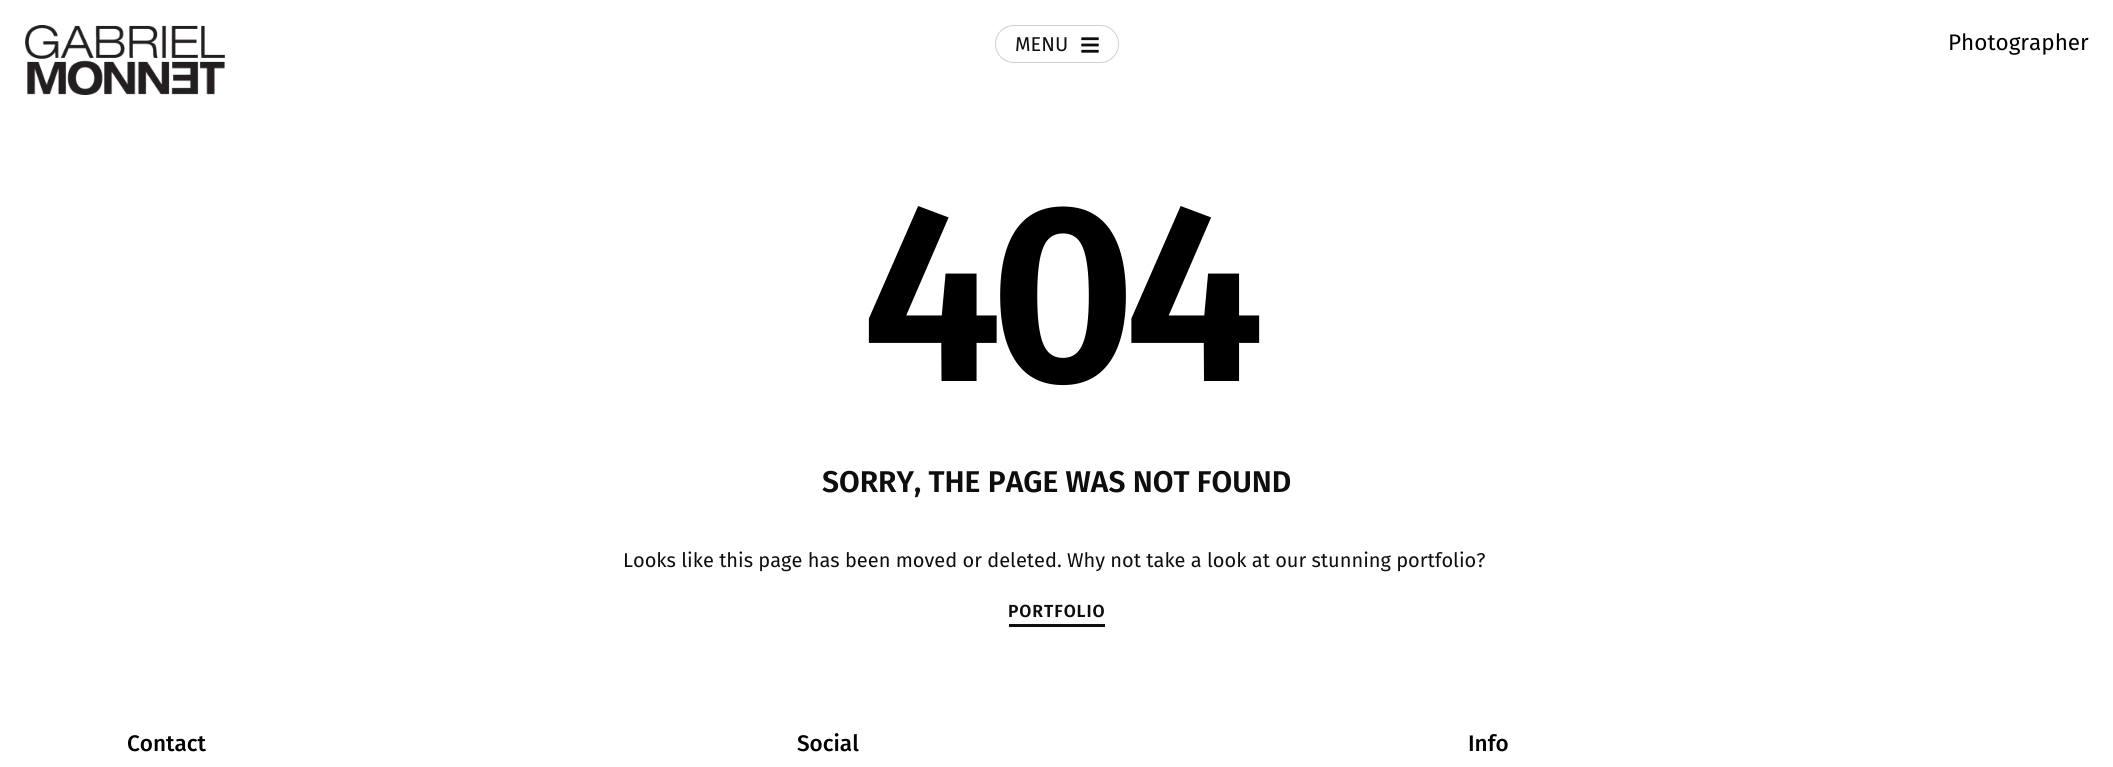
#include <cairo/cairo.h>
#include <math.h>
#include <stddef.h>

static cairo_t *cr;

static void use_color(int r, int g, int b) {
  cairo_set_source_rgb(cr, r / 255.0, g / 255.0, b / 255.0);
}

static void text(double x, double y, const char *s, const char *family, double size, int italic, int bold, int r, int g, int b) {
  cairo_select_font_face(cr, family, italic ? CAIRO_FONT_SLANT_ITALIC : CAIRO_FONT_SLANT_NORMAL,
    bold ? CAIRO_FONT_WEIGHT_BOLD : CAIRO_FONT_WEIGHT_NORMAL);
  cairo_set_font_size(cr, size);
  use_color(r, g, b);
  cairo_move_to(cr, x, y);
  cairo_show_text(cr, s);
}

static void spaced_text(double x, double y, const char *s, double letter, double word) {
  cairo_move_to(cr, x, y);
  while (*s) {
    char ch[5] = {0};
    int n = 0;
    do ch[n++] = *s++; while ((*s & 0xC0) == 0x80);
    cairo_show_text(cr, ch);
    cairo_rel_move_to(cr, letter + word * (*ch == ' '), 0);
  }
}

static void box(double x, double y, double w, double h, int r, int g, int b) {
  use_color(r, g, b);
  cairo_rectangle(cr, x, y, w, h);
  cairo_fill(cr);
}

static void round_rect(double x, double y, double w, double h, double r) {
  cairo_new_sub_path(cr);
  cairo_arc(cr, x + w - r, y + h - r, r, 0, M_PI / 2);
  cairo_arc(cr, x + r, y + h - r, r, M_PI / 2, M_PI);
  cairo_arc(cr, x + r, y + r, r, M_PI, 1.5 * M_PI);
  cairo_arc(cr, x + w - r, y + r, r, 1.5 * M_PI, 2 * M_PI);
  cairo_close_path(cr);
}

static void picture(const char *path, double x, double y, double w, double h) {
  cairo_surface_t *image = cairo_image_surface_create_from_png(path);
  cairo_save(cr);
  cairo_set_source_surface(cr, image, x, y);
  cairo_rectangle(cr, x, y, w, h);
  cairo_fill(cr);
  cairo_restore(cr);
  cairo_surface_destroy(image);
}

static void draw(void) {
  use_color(255, 255, 255);
  cairo_paint(cr);
  picture("img_01.png", 25, 25, 200, 70);
  round_rect(995.5, 25.5, 123, 37, 18.5);
  use_color(207, 207, 207);
  cairo_set_line_width(cr, 1);
  cairo_stroke(cr);
  picture("img_02.png", 1081, 37, 18, 16);
  box(1009, 624, 96, 3, 14, 14, 14);
  text(1015, 51, "MENU", "Fira Sans", 20, 0, 0, 14, 14, 14);
  text(1948, 50, "Photographer", "Fira Sans", 22.5, 0, 0, 0, 0, 0);
  cairo_select_font_face(cr, "Fira Sans SemiBold", CAIRO_FONT_SLANT_NORMAL, CAIRO_FONT_WEIGHT_NORMAL);
  cairo_set_font_size(cr, 254);
  spaced_text(861, 381, "404", -13, 0);
  text(822, 492, "SORRY, THE PAGE WAS NOT FOUND", "Fira Sans SemiBold", 30, 0, 0, 14, 14, 14);
  text(623, 567, "Looks like this page has been moved or deleted. Why not take a look at our stunning portfolio?", "Fira Sans", 20, 0, 0, 14, 14, 14);
  cairo_select_font_face(cr, "Fira Sans SemiBold", CAIRO_FONT_SLANT_NORMAL, CAIRO_FONT_WEIGHT_NORMAL);
  cairo_set_font_size(cr, 17.5);
  spaced_text(1008, 617, "PORTFOLIO", 0.9, 0);
  text(127, 751, "Contact", "Fira Sans Medium", 22.5, 0, 0, 0, 0, 0);
  text(797, 751, "Social", "Fira Sans Medium", 22.5, 0, 0, 0, 0, 0);
  text(1468, 751, "Info", "Fira Sans Medium", 22.5, 0, 0, 0, 0, 0);
}

int main(void) {
  cairo_surface_t *surface = cairo_image_surface_create(CAIRO_FORMAT_RGB24, 2113, 767);
  cr = cairo_create(surface);
  cairo_font_options_t *options = cairo_font_options_create();
  cairo_font_options_set_hint_metrics(options, CAIRO_HINT_METRICS_OFF);
  cairo_font_options_set_hint_style(options, CAIRO_HINT_STYLE_NONE);
  cairo_set_font_options(cr, options);
  cairo_set_miter_limit(cr, 4);
  draw();
  cairo_surface_write_to_png(surface, "out.png");
  cairo_font_options_destroy(options);
  cairo_destroy(cr);
  cairo_surface_destroy(surface);
  return 0;
}
